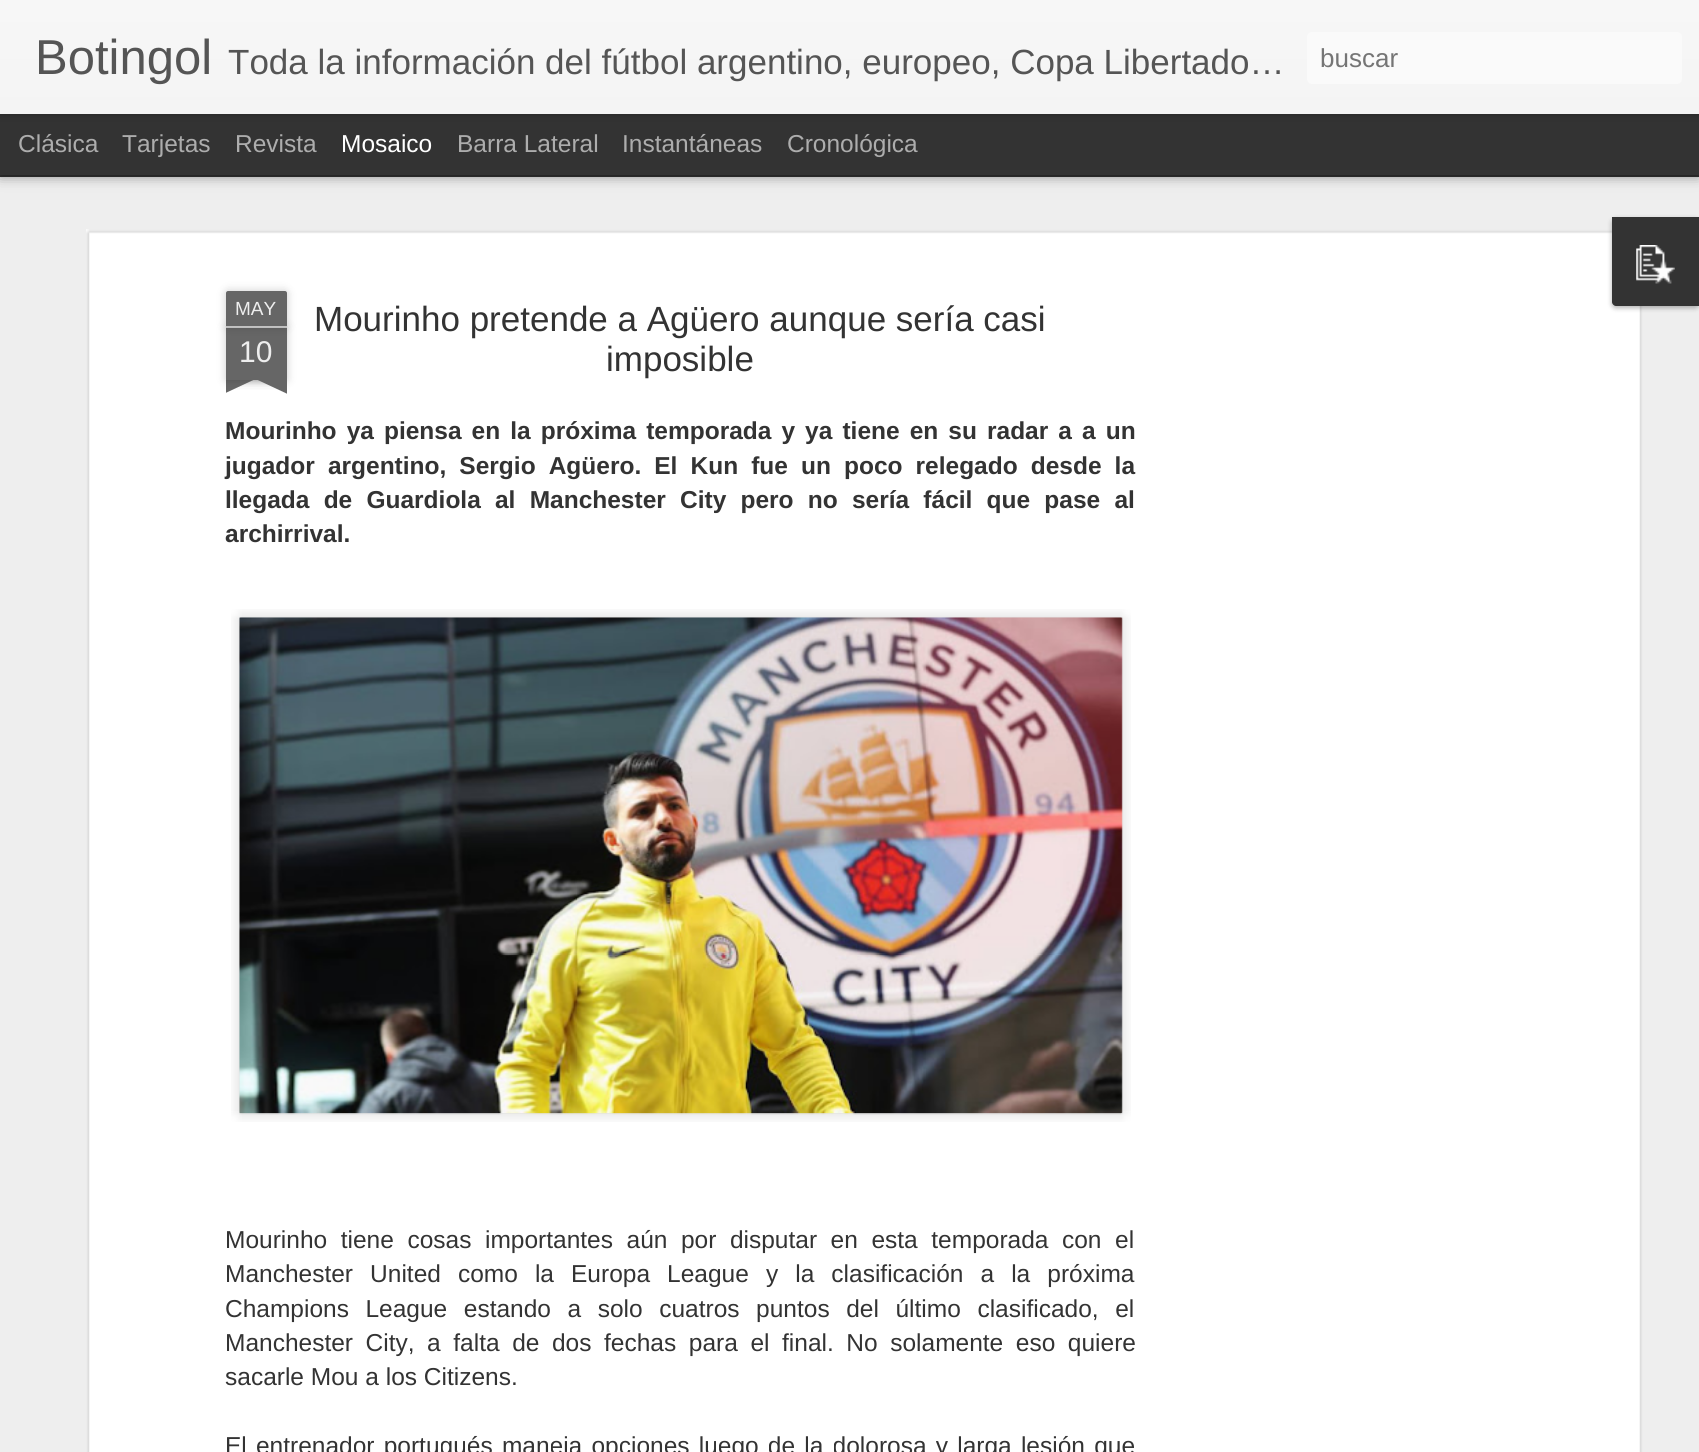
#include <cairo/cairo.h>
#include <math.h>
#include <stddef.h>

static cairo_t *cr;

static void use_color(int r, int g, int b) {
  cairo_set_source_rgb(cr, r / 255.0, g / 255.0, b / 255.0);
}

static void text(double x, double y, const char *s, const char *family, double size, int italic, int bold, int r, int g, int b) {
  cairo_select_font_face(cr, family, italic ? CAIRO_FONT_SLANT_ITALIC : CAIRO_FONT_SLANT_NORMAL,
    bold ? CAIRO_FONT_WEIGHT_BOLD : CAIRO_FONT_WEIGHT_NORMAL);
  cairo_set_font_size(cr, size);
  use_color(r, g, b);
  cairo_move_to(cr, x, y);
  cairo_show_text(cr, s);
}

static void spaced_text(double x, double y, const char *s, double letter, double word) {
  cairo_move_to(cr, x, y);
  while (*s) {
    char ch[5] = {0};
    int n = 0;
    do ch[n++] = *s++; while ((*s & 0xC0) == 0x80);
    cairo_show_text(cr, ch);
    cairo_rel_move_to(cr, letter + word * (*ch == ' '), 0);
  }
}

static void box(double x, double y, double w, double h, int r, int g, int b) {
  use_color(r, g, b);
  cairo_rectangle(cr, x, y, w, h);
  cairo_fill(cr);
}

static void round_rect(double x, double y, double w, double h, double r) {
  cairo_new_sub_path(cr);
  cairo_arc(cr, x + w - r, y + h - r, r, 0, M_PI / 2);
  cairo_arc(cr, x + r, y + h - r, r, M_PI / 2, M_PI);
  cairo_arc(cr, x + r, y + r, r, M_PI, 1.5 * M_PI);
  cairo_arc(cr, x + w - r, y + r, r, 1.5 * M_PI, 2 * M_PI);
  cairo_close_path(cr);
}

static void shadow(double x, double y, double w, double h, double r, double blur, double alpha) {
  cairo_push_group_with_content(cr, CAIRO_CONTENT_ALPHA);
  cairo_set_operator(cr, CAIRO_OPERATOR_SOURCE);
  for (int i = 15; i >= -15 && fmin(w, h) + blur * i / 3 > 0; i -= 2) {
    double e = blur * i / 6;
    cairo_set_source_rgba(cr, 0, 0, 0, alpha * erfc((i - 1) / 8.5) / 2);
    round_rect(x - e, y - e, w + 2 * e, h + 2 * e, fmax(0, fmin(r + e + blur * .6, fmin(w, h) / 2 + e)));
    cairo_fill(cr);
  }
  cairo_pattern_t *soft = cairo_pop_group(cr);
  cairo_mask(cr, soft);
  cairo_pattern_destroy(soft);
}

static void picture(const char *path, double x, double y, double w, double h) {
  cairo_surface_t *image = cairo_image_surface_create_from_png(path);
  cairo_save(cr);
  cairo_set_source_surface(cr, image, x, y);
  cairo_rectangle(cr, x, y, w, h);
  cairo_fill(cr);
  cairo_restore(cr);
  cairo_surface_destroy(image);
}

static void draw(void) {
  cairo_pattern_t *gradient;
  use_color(51, 51, 51);
  cairo_paint(cr);
  box(0, 177, 1699, 1275, 238, 238, 238);
  use_color(0, 0, 0);
  shadow(0, 114, 1699, 61, 0, 7, 0.5);
  box(0, 114, 1699, 61, 51, 51, 51);
  use_color(0, 0, 0);
  shadow(0, 0, 1699, 114, 0, 4.5, 0.3);
  gradient = cairo_pattern_create_linear(0, 0, 0, 114);
  cairo_pattern_add_color_stop_rgba(gradient, 0, 0.969, 0.969, 0.969, 1);
  cairo_pattern_add_color_stop_rgba(gradient, 1, 0.957, 0.957, 0.957, 1);
  cairo_set_source(cr, gradient);
  cairo_pattern_destroy(gradient);
  cairo_rectangle(cr, 0, 0, 1699, 114);
  cairo_fill(cr);
  use_color(250, 250, 250);
  round_rect(1307, 32, 375, 52, 5);
  cairo_fill(cr);
  box(86, 229, 1557, 1223, 255, 255, 255);
  picture("img_02.png", 86, 229, 1557, 1223);
  use_color(0, 0, 0);
  shadow(1612, 219, 87, 89, 4, 2.5, 0.3);
  use_color(51, 51, 51);
  cairo_new_path(cr);
  cairo_move_to(cr, 1612, 217);
  cairo_line_to(cr, 1699, 217);
  cairo_line_to(cr, 1699, 306);
  cairo_line_to(cr, 1616, 306);
  cairo_curve_to(cr, 1614, 306, 1612, 304, 1612, 302);
  cairo_close_path(cr);
  cairo_fill(cr);
  picture("img_01.png", 1636, 245, 39, 39);
  use_color(0, 0, 0);
  shadow(226, 327, 61, 53, 0, 4.5, 0.2);
  box(226, 327, 61, 53, 102, 102, 102);
  use_color(0, 0, 0);
  shadow(226, 291, 61, 36, 2, 4.5, 0.2);
  use_color(102, 102, 102);
  cairo_new_path(cr);
  cairo_move_to(cr, 228, 291);
  cairo_line_to(cr, 285, 291);
  cairo_curve_to(cr, 286, 291, 287, 292, 287, 293);
  cairo_line_to(cr, 287, 327);
  cairo_line_to(cr, 226, 327);
  cairo_line_to(cr, 226, 293);
  cairo_curve_to(cr, 226, 292, 227, 291, 228, 291);
  cairo_close_path(cr);
  cairo_fill(cr);
  cairo_set_source_rgba(cr, 1, 1, 1, 0.6);
  cairo_rectangle(cr, 226, 326, 61, 2);
  cairo_fill(cr);
  cairo_save(cr);
  cairo_rectangle(cr, 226, 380, 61, 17);
  cairo_clip(cr);
  use_color(0, 0, 0);
  shadow(210, 362, 88, 18, 0, 4.5, 0.2);
  cairo_restore(cr);
  cairo_save(cr);
  cairo_rectangle(cr, 226, 380, 61, 17);
  cairo_clip(cr);
  use_color(102, 102, 102);
  cairo_new_path(cr);
  cairo_move_to(cr, 210, 382);
  cairo_line_to(cr, 289, 345);
  cairo_line_to(cr, 296, 360);
  cairo_line_to(cr, 217, 397);
  cairo_close_path(cr);
  cairo_fill(cr);
  cairo_restore(cr);
  cairo_save(cr);
  cairo_rectangle(cr, 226, 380, 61, 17);
  cairo_clip(cr);
  use_color(0, 0, 0);
  shadow(215, 362, 88, 18, 0, 4.5, 0.2);
  cairo_restore(cr);
  cairo_save(cr);
  cairo_rectangle(cr, 226, 380, 61, 17);
  cairo_clip(cr);
  use_color(102, 102, 102);
  cairo_new_path(cr);
  cairo_move_to(cr, 222, 345);
  cairo_line_to(cr, 301, 382);
  cairo_line_to(cr, 294, 397);
  cairo_line_to(cr, 215, 360);
  cairo_close_path(cr);
  cairo_fill(cr);
  cairo_restore(cr);
  picture("img_03.png", 231, 609, 900, 513);
  picture("img_04.png", 239, 617, 884, 498);
  text(35, 74, "Botingol", "Liberation Sans", 49, 0, 0, 85, 85, 85);
  text(228, 74, "Toda la información del fútbol argentino, europeo, Copa Libertado…", "Liberation Sans", 35, 0, 0, 85, 85, 85);
  text(1320, 67, "buscar", "Liberation Sans", 26, 0, 0, 117, 117, 117);
  text(18, 152, "Clásica", "Liberation Sans", 24.5, 0, 0, 173, 173, 173);
  text(122, 152, "Tarjetas", "Liberation Sans", 24.5, 0, 0, 173, 173, 173);
  text(235, 152, "Revista", "Liberation Sans", 24.5, 0, 0, 173, 173, 173);
  text(341, 152, "Mosaico", "Liberation Sans", 24.5, 0, 0, 255, 255, 255);
  text(457, 152, "Barra Lateral", "Liberation Sans", 24.5, 0, 0, 173, 173, 173);
  text(622, 152, "Instantáneas", "Liberation Sans", 24.5, 0, 0, 173, 173, 173);
  text(787, 152, "Cronológica", "Liberation Sans", 24.5, 0, 0, 173, 173, 173);
  text(235, 315, "MAY", "Liberation Sans", 19, 0, 0, 238, 238, 238);
  text(239, 362, "10", "Liberation Sans", 30, 0, 0, 238, 238, 238);
  text(314, 331, "Mourinho pretende a Agüero aunque sería casi", "Liberation Sans", 35, 0, 0, 51, 51, 51);
  text(606, 371, "imposible", "Liberation Sans", 35, 0, 0, 51, 51, 51);
  cairo_select_font_face(cr, "Liberation Sans", CAIRO_FONT_SLANT_NORMAL, CAIRO_FONT_WEIGHT_BOLD);
  cairo_set_font_size(cr, 24.5);
  spaced_text(225, 439, "Mourinho ya piensa en la próxima temporada y ya tiene en su radar a a un", 0, 3.25);
  spaced_text(225, 474, "jugador argentino, Sergio Agüero. El Kun fue un poco relegado desde la", 0, 6.25);
  spaced_text(225, 508, "llegada de Guardiola al Manchester City pero no sería fácil que pase al", 0, 7.4);
  text(225, 542, "archirrival.", "Liberation Sans", 24.5, 0, 1, 51, 51, 51);
  cairo_select_font_face(cr, "Liberation Sans", CAIRO_FONT_SLANT_NORMAL, CAIRO_FONT_WEIGHT_NORMAL);
  spaced_text(225, 1248, "Mourinho tiene cosas importantes aún por disputar en esta temporada con el", 0, 6.75);
  spaced_text(225, 1282, "Manchester United como la Europa League y la clasificación a la próxima", 0, 10.25);
  spaced_text(225, 1317, "Champions League estando a solo cuatros puntos del último clasificado, el", 0, 9.75);
  spaced_text(225, 1351, "Manchester City, a falta de dos fechas para el final. No solamente eso quiere", 0, 5.75);
  text(225, 1385, "sacarle Mou a los Citizens.", "Liberation Sans", 24.5, 0, 0, 51, 51, 51);
  spaced_text(225, 1454, "El entrenador portugués maneja opciones luego de la dolorosa y larga lesión que", 0, 2.4);
}

int main(void) {
  cairo_surface_t *surface = cairo_image_surface_create(CAIRO_FORMAT_RGB24, 1699, 1452);
  cr = cairo_create(surface);
  cairo_font_options_t *options = cairo_font_options_create();
  cairo_font_options_set_hint_metrics(options, CAIRO_HINT_METRICS_OFF);
  cairo_font_options_set_hint_style(options, CAIRO_HINT_STYLE_NONE);
  cairo_set_font_options(cr, options);
  cairo_set_miter_limit(cr, 4);
  draw();
  cairo_surface_write_to_png(surface, "out.png");
  cairo_font_options_destroy(options);
  cairo_destroy(cr);
  cairo_surface_destroy(surface);
  return 0;
}
